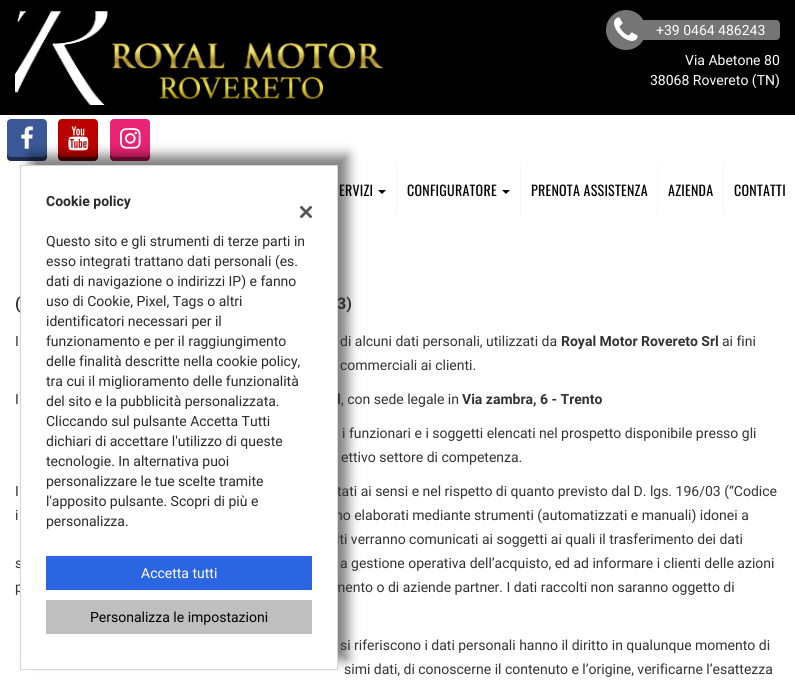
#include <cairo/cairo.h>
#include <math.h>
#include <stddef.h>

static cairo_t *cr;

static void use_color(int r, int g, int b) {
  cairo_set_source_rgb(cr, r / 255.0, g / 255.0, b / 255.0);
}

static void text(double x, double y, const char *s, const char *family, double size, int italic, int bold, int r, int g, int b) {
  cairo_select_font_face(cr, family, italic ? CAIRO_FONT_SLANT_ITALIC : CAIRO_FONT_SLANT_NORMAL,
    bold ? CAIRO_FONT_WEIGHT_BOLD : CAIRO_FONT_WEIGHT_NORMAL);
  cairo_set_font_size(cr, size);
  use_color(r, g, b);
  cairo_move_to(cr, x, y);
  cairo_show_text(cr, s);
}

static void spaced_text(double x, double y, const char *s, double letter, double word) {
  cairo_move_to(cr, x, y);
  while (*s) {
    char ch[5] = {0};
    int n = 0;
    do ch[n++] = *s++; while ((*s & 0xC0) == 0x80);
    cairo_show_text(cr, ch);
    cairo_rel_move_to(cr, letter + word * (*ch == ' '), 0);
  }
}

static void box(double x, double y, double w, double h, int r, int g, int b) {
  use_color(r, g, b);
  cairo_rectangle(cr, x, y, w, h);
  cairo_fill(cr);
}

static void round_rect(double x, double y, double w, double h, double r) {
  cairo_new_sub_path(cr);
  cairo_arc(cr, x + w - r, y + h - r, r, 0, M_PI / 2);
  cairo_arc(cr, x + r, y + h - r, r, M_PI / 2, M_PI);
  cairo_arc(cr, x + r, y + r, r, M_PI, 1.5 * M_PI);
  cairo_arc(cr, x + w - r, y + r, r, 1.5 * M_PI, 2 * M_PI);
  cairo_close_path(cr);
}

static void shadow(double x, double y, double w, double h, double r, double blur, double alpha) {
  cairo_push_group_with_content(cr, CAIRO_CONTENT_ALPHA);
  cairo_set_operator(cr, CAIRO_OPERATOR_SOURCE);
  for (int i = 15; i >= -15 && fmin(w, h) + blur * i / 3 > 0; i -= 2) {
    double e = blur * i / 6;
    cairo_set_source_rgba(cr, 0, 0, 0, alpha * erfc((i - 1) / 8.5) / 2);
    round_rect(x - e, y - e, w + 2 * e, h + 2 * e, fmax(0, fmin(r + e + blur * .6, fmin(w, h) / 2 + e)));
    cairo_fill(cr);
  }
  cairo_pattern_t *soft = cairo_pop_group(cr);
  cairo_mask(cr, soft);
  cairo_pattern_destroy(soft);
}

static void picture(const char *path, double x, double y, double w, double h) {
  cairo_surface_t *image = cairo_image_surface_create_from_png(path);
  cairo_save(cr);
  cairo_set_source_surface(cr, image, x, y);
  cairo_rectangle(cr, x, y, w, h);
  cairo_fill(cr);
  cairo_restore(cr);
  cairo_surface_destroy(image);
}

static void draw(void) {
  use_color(255, 255, 255);
  cairo_paint(cr);
  box(0, 0, 795, 115, 0, 0, 0);
  picture("img_01.png", 15, 11, 368, 94);
  use_color(117, 117, 117);
  cairo_arc(cr, 626, 30, 20, 0, 2 * M_PI);
  cairo_fill(cr);
  picture("img_02.png", 614, 17, 24, 24);
  round_rect(641, 20, 139, 20, 4);
  cairo_fill(cr);
  use_color(59, 89, 152);
  round_rect(7, 119, 40, 42, 4);
  cairo_fill(cr);
  use_color(30, 46, 79);
  cairo_new_path(cr);
  cairo_move_to(cr, 7, 153);
  cairo_curve_to(cr, 7, 161, 8, 161, 16, 161);
  cairo_line_to(cr, 38, 161);
  cairo_curve_to(cr, 46, 161, 47, 161, 47, 153);
  cairo_curve_to(cr, 47, 155, 45, 157, 43, 157);
  cairo_line_to(cr, 11, 157);
  cairo_curve_to(cr, 9, 157, 7, 155, 7, 153);
  cairo_close_path(cr);
  cairo_fill(cr);
  picture("img_03.png", 21, 126, 12, 23);
  use_color(187, 0, 0);
  round_rect(58, 119, 40, 42, 4);
  cairo_fill(cr);
  use_color(85, 0, 0);
  cairo_new_path(cr);
  cairo_move_to(cr, 58, 153);
  cairo_curve_to(cr, 58, 161, 59, 161, 67, 161);
  cairo_line_to(cr, 89, 161);
  cairo_curve_to(cr, 97, 161, 98, 161, 98, 153);
  cairo_curve_to(cr, 98, 155, 96, 157, 94, 157);
  cairo_line_to(cr, 62, 157);
  cairo_curve_to(cr, 60, 157, 58, 155, 58, 153);
  cairo_close_path(cr);
  cairo_fill(cr);
  picture("img_04.png", 68, 126, 21, 25);
  use_color(234, 35, 116);
  round_rect(110, 119, 40, 42, 4);
  cairo_fill(cr);
  use_color(152, 15, 71);
  cairo_new_path(cr);
  cairo_move_to(cr, 110, 153);
  cairo_curve_to(cr, 110, 161, 111, 161, 119, 161);
  cairo_line_to(cr, 141, 161);
  cairo_curve_to(cr, 149, 161, 150, 161, 150, 153);
  cairo_curve_to(cr, 150, 155, 148, 157, 146, 157);
  cairo_line_to(cr, 114, 157);
  cairo_curve_to(cr, 112, 157, 110, 155, 110, 153);
  cairo_close_path(cr);
  cairo_fill(cr);
  picture("img_05.png", 120, 128, 21, 21);
  use_color(0, 0, 0);
  cairo_new_path(cr);
  cairo_move_to(cr, 378, 190);
  cairo_line_to(cr, 386, 190);
  cairo_line_to(cr, 382, 194);
  cairo_close_path(cr);
  cairo_fill(cr);
  box(396, 165, 1, 50, 245, 245, 245);
  use_color(0, 0, 0);
  cairo_new_path(cr);
  cairo_move_to(cr, 502, 190);
  cairo_line_to(cr, 510, 190);
  cairo_line_to(cr, 506, 194);
  cairo_close_path(cr);
  cairo_fill(cr);
  box(520, 165, 1, 50, 245, 245, 245);
  box(657, 165, 1, 50, 245, 245, 245);
  box(723, 165, 1, 50, 245, 245, 245);
  use_color(0, 0, 0);
  shadow(30, 155, 318, 505, 0, 6, 0.5);
  text(656, 35, "+39 0464 486243", "Roboto", 14, 0, 0, 255, 255, 255);
  text(685, 65, "Via Abetone 80", "Roboto", 14, 0, 0, 255, 255, 255);
  text(650, 85, "38068 Rovereto (TN)", "Roboto", 14, 0, 0, 255, 255, 255);
  cairo_select_font_face(cr, "Oswald", CAIRO_FONT_SLANT_NORMAL, CAIRO_FONT_WEIGHT_NORMAL);
  use_color(0, 0, 0);
  spaced_text(339, 196, "ERVIZI", 0.25, 0);
  spaced_text(407, 196, "CONFIGURATORE", 0.25, 0);
  spaced_text(531, 196, "PRENOTA ASSISTENZA", 0.25, 0);
  spaced_text(668, 196, "AZIENDA", 0.25, 0);
  spaced_text(734, 196, "CONTATTI", 0.25, 0);
  text(15, 309, "(", "Roboto", 16, 0, 1, 51, 51, 51);
  text(337, 309, "3)", "Roboto", 16, 0, 1, 51, 51, 51);
  text(15, 346, "I", "Roboto", 14, 0, 0, 51, 51, 51);
  text(340, 346, "di alcuni dati personali, utilizzati da", "Roboto", 14, 0, 0, 51, 51, 51);
  text(561, 346, "Royal Motor Rovereto Srl", "Roboto", 14, 0, 1, 51, 51, 51);
  text(722, 346, "ai fini", "Roboto", 14, 0, 0, 51, 51, 51);
  text(340, 370, "commerciali ai clienti.", "Roboto", 14, 0, 0, 51, 51, 51);
  text(15, 404, "I", "Roboto", 14, 0, 0, 51, 51, 51);
  text(337, 404, "l", "Roboto", 14, 0, 1, 51, 51, 51);
  text(341, 404, ", con sede legale in", "Roboto", 14, 0, 0, 51, 51, 51);
  text(462, 404, "Via zambra, 6 - Trento", "Roboto", 14, 0, 1, 51, 51, 51);
  text(342, 438, "i funzionari e i soggetti elencati nel prospetto disponibile presso gli", "Roboto", 14, 0, 0, 51, 51, 51);
  text(341, 462, "ettivo settore di competenza.", "Roboto", 14, 0, 0, 51, 51, 51);
  text(15, 496, "I", "Roboto", 14, 0, 0, 51, 51, 51);
  text(337, 496, "tati ai sensi e nel rispetto di quanto previsto dal D. lgs. 196/03 (“Codice", "Roboto", 14, 0, 0, 51, 51, 51);
  text(15, 520, "i", "Roboto", 14, 0, 0, 51, 51, 51);
  text(335, 520, "no elaborati mediante strumenti (automatizzati e manuali) idonei a", "Roboto", 14, 0, 0, 51, 51, 51);
  text(336, 544, "lti verranno comunicati ai soggetti ai quali il trasferimento dei dati", "Roboto", 14, 0, 0, 51, 51, 51);
  text(15, 568, "s", "Roboto", 14, 0, 0, 51, 51, 51);
  text(340, 568, "a gestione operativa dell’acquisto, ed ad informare i clienti delle azioni", "Roboto", 14, 0, 0, 51, 51, 51);
  text(15, 592, "p", "Roboto", 14, 0, 0, 51, 51, 51);
  text(333, 592, "mento o di aziende partner. I dati raccolti non saranno oggetto di", "Roboto", 14, 0, 0, 51, 51, 51);
  text(340, 650, "si riferiscono i dati personali hanno il diritto in qualunque momento di", "Roboto", 14, 0, 0, 51, 51, 51);
  text(344, 674, "simi dati, di conoscerne il contenuto e l’origine, verificarne l’esattezza", "Roboto", 14, 0, 0, 51, 51, 51);
  use_color(255, 255, 255);
  cairo_rectangle(cr, 20.5, 165.5, 317, 504);
  cairo_fill_preserve(cr);
  use_color(214, 214, 214);
  cairo_set_line_width(cr, 1);
  cairo_stroke(cr);
  text(46, 206, "Cookie policy", "Roboto", 14, 0, 1, 43, 41, 41);
  text(46, 246, "Questo sito e gli strumenti di terze parti in", "Roboto", 14, 0, 0, 43, 41, 41);
  text(46, 266, "esso integrati trattano dati personali (es.", "Roboto", 14, 0, 0, 43, 41, 41);
  text(46, 286, "dati di navigazione o indirizzi IP) e fanno", "Roboto", 14, 0, 0, 43, 41, 41);
  text(46, 306, "uso di Cookie, Pixel, Tags o altri", "Roboto", 14, 0, 0, 43, 41, 41);
  text(46, 326, "identificatori necessari per il", "Roboto", 14, 0, 0, 43, 41, 41);
  text(46, 346, "funzionamento e per il raggiungimento", "Roboto", 14, 0, 0, 43, 41, 41);
  text(46, 366, "delle finalità descritte nella cookie policy,", "Roboto", 14, 0, 0, 43, 41, 41);
  text(46, 386, "tra cui il miglioramento delle funzionalità", "Roboto", 14, 0, 0, 43, 41, 41);
  text(46, 406, "del sito e la pubblicità personalizzata.", "Roboto", 14, 0, 0, 43, 41, 41);
  text(46, 426, "Cliccando sul pulsante Accetta Tutti", "Roboto", 14, 0, 0, 43, 41, 41);
  text(46, 446, "dichiari di accettare l'utilizzo di queste", "Roboto", 14, 0, 0, 43, 41, 41);
  text(46, 466, "tecnologie. In alternativa puoi", "Roboto", 14, 0, 0, 43, 41, 41);
  text(46, 486, "personalizzare le tue scelte tramite", "Roboto", 14, 0, 0, 43, 41, 41);
  text(46, 506, "l'apposito pulsante. Scopri di più e", "Roboto", 14, 0, 0, 43, 41, 41);
  text(46, 526, "personalizza.", "Roboto", 14, 0, 0, 43, 41, 41);
  picture("img_06.png", 300, 206, 12, 12);
  box(46, 556, 266, 34, 44, 101, 225);
  text(141, 578, "Accetta tutti", "Roboto", 14, 0, 0, 255, 255, 255);
  box(46, 600, 266, 34, 191, 191, 191);
  text(90, 622, "Personalizza le impostazioni", "Roboto", 14, 0, 0, 0, 0, 0);
}

int main(void) {
  cairo_surface_t *surface = cairo_image_surface_create(CAIRO_FORMAT_RGB24, 795, 690);
  cr = cairo_create(surface);
  cairo_font_options_t *options = cairo_font_options_create();
  cairo_font_options_set_hint_metrics(options, CAIRO_HINT_METRICS_OFF);
  cairo_font_options_set_hint_style(options, CAIRO_HINT_STYLE_NONE);
  cairo_set_font_options(cr, options);
  cairo_set_miter_limit(cr, 4);
  draw();
  cairo_surface_write_to_png(surface, "out.png");
  cairo_font_options_destroy(options);
  cairo_destroy(cr);
  cairo_surface_destroy(surface);
  return 0;
}
